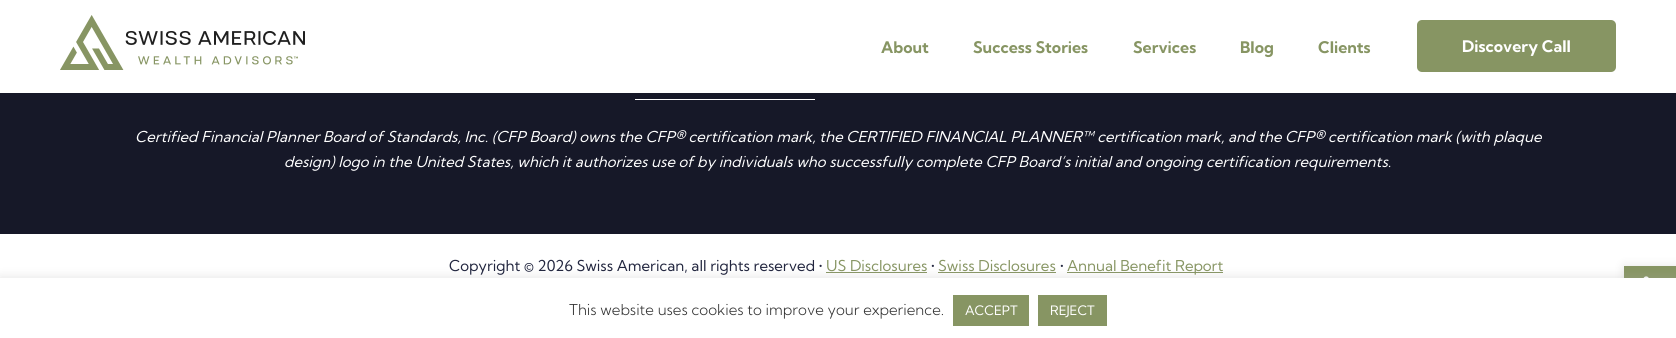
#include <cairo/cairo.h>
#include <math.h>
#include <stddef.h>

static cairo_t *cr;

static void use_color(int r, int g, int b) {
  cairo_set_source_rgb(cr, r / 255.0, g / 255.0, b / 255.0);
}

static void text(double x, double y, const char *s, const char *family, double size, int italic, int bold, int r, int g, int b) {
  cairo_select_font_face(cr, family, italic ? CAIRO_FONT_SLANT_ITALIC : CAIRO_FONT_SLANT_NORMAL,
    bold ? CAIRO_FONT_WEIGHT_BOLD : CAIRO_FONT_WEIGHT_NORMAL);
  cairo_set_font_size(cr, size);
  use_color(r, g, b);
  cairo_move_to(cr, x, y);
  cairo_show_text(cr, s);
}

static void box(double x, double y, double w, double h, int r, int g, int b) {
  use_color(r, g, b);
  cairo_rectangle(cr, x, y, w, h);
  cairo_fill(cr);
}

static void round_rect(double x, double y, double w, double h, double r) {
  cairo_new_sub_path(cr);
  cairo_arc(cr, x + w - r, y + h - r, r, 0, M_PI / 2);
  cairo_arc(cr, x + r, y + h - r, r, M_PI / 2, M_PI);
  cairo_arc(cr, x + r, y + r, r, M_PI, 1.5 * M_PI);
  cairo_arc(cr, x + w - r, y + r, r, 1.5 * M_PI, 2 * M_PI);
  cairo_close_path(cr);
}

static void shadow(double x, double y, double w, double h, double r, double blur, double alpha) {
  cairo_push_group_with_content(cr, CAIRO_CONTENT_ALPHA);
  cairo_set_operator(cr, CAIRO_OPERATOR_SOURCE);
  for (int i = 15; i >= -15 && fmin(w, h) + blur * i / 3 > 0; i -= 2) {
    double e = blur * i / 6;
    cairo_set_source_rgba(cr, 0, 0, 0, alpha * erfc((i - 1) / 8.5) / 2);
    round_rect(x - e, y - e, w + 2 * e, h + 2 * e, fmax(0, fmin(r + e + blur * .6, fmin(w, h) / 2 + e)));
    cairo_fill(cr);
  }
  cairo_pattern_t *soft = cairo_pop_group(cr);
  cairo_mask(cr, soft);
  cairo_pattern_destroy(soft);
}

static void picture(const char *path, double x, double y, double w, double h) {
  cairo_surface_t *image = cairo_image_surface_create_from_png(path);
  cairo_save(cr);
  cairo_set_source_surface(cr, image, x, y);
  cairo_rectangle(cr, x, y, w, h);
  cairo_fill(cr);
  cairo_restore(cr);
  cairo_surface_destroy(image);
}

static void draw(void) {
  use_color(255, 255, 255);
  cairo_paint(cr);
  picture("img_01.png", 60, 15, 245, 55);
  use_color(135, 149, 99);
  round_rect(1417, 20, 199, 52, 5);
  cairo_fill(cr);
  box(0, 93, 1676, 141, 22, 24, 40);
  box(635, 99, 180, 1, 255, 255, 255);
  box(826, 272, 101, 1, 135, 149, 99);
  box(938, 272, 118, 1, 135, 149, 99);
  box(1067, 272, 156, 1, 135, 149, 99);
  use_color(0, 0, 0);
  shadow(1624, 266, 52, 52, 0, 5, 0.1);
  box(1624, 266, 52, 12, 135, 149, 99);
  picture("img_02.png", 1643, 276, 6, 2);
  use_color(172, 171, 171);
  shadow(0, 277, 1676, 60, 0, 5, 0.3);
  box(0, 278, 1676, 60, 255, 255, 255);
  box(953, 295, 76, 31, 135, 149, 99);
  box(1038, 295, 69, 31, 135, 149, 99);
  text(881, 53, "About", "Kumbh Sans", 16, 0, 1, 135, 149, 99);
  text(973, 53, "Success Stories", "Kumbh Sans", 16, 0, 1, 135, 149, 99);
  text(1133, 53, "Services", "Kumbh Sans", 16, 0, 1, 135, 149, 99);
  text(1240, 53, "Blog", "Kumbh Sans", 16, 0, 1, 135, 149, 99);
  text(1318, 53, "Clients", "Kumbh Sans", 16, 0, 1, 135, 149, 99);
  text(1462, 52, "Discovery Call", "Kumbh Sans", 16, 0, 1, 255, 255, 255);
  text(135, 142, "Certified Financial Planner Board of Standards, Inc. (CFP Board) owns the CFP® certification mark, the CERTIFIED FINANCIAL PLANNER™ certification mark, and the CFP® certification mark (with plaque", "Kumbh Sans", 15, 1, 0, 255, 255, 255);
  text(284, 167, "design) logo in the United States, which it authorizes use of by individuals who successfully complete CFP Board’s initial and ongoing certification requirements.", "Kumbh Sans", 15, 1, 0, 255, 255, 255);
  text(449, 271, "Copyright © 2026 Swiss American, all rights reserved •", "Kumbh Sans", 15, 0, 0, 34, 38, 63);
  text(826, 271, "US Disclosures", "Kumbh Sans", 15, 0, 0, 135, 149, 99);
  text(931, 271, "•", "Kumbh Sans", 15, 0, 0, 34, 38, 63);
  text(938, 271, "Swiss Disclosures", "Kumbh Sans", 15, 0, 0, 135, 149, 99);
  text(1060, 271, "•", "Kumbh Sans", 15, 0, 0, 34, 38, 63);
  text(1067, 271, "Annual Benefit Report", "Kumbh Sans", 15, 0, 0, 135, 149, 99);
  text(569, 315, "This website uses cookies to improve your experience.", "Kumbh Sans Light", 15, 0, 0, 51, 51, 51);
  text(965, 315, "ACCEPT", "Kumbh Sans", 13, 0, 0, 255, 255, 255);
  text(1050, 315, "REJECT", "Kumbh Sans", 13, 0, 0, 255, 255, 255);
}

int main(void) {
  cairo_surface_t *surface = cairo_image_surface_create(CAIRO_FORMAT_RGB24, 1676, 338);
  cr = cairo_create(surface);
  cairo_font_options_t *options = cairo_font_options_create();
  cairo_font_options_set_hint_metrics(options, CAIRO_HINT_METRICS_OFF);
  cairo_font_options_set_hint_style(options, CAIRO_HINT_STYLE_NONE);
  cairo_set_font_options(cr, options);
  cairo_set_miter_limit(cr, 4);
  draw();
  cairo_surface_write_to_png(surface, "out.png");
  cairo_font_options_destroy(options);
  cairo_destroy(cr);
  cairo_surface_destroy(surface);
  return 0;
}
